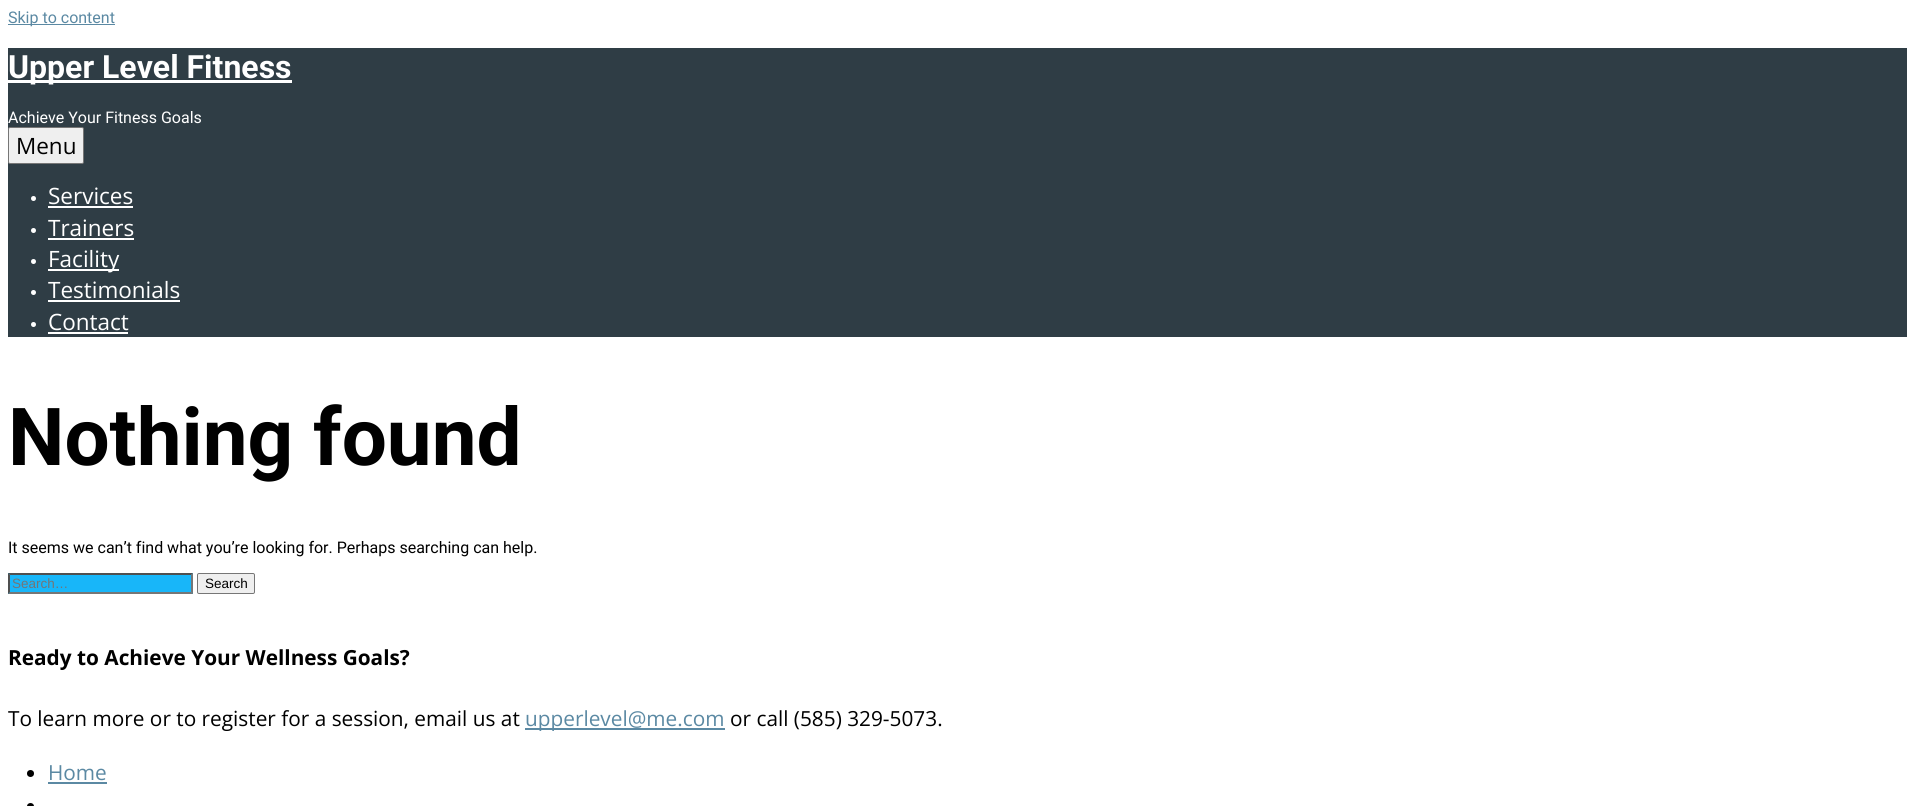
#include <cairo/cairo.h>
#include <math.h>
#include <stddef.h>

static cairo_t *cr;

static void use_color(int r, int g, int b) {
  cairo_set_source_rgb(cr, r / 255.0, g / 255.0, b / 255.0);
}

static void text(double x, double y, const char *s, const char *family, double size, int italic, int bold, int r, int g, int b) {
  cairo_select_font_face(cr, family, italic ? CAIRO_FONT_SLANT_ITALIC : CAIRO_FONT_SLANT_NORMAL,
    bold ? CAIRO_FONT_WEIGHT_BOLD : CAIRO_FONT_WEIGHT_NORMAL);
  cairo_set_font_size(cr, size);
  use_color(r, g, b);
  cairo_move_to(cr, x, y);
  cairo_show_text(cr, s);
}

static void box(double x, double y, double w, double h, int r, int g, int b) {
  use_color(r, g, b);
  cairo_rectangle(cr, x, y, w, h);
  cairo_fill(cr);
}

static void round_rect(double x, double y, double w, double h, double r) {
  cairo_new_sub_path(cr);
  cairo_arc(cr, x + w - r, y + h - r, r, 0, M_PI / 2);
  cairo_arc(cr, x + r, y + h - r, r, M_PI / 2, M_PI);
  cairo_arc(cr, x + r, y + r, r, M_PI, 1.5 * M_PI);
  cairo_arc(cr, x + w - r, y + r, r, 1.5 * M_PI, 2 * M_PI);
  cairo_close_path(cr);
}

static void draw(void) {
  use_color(255, 255, 255);
  cairo_paint(cr);
  box(8, 24, 107, 1, 91, 137, 163);
  box(8, 48, 1899, 289, 47, 61, 69);
  box(8, 80, 284, 3, 255, 255, 255);
  use_color(239, 239, 239);
  round_rect(8.5, 127.5, 75, 36, 1.5);
  cairo_fill_preserve(cr);
  use_color(118, 118, 118);
  cairo_set_line_width(cr, 1);
  cairo_stroke(cr);
  use_color(255, 255, 255);
  cairo_arc(cr, 33.5, 198.5, 2.5, 0, 2 * M_PI);
  cairo_fill(cr);
  box(48, 206, 85, 2, 255, 255, 255);
  cairo_arc(cr, 33.5, 230.5, 2.5, 0, 2 * M_PI);
  cairo_fill(cr);
  box(48, 238, 86, 2, 255, 255, 255);
  cairo_arc(cr, 33.5, 261.5, 2.5, 0, 2 * M_PI);
  cairo_fill(cr);
  box(48, 269, 71, 2, 255, 255, 255);
  cairo_arc(cr, 33.5, 292.5, 2.5, 0, 2 * M_PI);
  cairo_fill(cr);
  box(48, 300, 132, 2, 255, 255, 255);
  cairo_arc(cr, 33.5, 324.5, 2.5, 0, 2 * M_PI);
  cairo_fill(cr);
  box(48, 332, 80, 2, 255, 255, 255);
  box(8, 573, 185, 21, 24, 182, 249);
  use_color(79, 79, 79);
  cairo_new_path(cr);
  cairo_move_to(cr, 8, 573);
  cairo_line_to(cr, 193, 573);
  cairo_line_to(cr, 191, 575);
  cairo_line_to(cr, 10, 575);
  cairo_close_path(cr);
  cairo_fill(cr);
  use_color(118, 118, 118);
  cairo_new_path(cr);
  cairo_move_to(cr, 193, 573);
  cairo_line_to(cr, 193, 594);
  cairo_line_to(cr, 191, 592);
  cairo_line_to(cr, 191, 575);
  cairo_close_path(cr);
  cairo_fill(cr);
  cairo_new_path(cr);
  cairo_move_to(cr, 193, 594);
  cairo_line_to(cr, 8, 594);
  cairo_line_to(cr, 10, 592);
  cairo_line_to(cr, 191, 592);
  cairo_close_path(cr);
  cairo_fill(cr);
  use_color(79, 79, 79);
  cairo_new_path(cr);
  cairo_move_to(cr, 8, 594);
  cairo_line_to(cr, 8, 573);
  cairo_line_to(cr, 10, 575);
  cairo_line_to(cr, 10, 592);
  cairo_close_path(cr);
  cairo_fill(cr);
  use_color(239, 239, 239);
  round_rect(197.5, 573.5, 57, 20, 1.5);
  cairo_fill_preserve(cr);
  use_color(118, 118, 118);
  cairo_stroke(cr);
  box(525, 728, 200, 2, 91, 137, 163);
  use_color(0, 0, 0);
  cairo_arc(cr, 30.5, 773.5, 3.5, 0, 2 * M_PI);
  cairo_fill(cr);
  box(48, 782, 59, 2, 91, 137, 163);
  use_color(0, 0, 0);
  cairo_arc(cr, 30.5, 806.5, 3.5, 0, 2 * M_PI);
  cairo_fill(cr);
  text(8, 23, "Skip to content", "Roboto", 16, 0, 0, 91, 137, 163);
  text(8, 78, "Upper Level Fitness", "Roboto", 32, 0, 1, 255, 255, 255);
  text(8, 123, "Achieve Your Fitness Goals", "Roboto", 16, 0, 0, 255, 255, 255);
  text(16, 154, "Menu", "Open Sans", 22.5, 0, 0, 0, 0, 0);
  text(48, 204, "Services", "Open Sans", 22.5, 0, 0, 255, 255, 255);
  text(48, 236, "Trainers", "Open Sans", 22.5, 0, 0, 255, 255, 255);
  text(48, 267, "Facility", "Open Sans", 22.5, 0, 0, 255, 255, 255);
  text(48, 298, "Testimonials", "Open Sans", 22.5, 0, 0, 255, 255, 255);
  text(48, 330, "Contact", "Open Sans", 22.5, 0, 0, 255, 255, 255);
  text(8, 465, "Nothing found", "Roboto", 80, 0, 1, 0, 0, 0);
  text(8, 553, "It seems we can’t find what you’re looking for. Perhaps searching can help.", "Roboto", 16, 0, 0, 0, 0, 0);
  text(12, 588, "Search…", "Liberation Sans", 13.5, 0, 0, 117, 117, 117);
  text(205, 588, "Search", "Liberation Sans", 13.5, 0, 0, 0, 0, 0);
  text(8, 665, "Ready to Achieve Your Wellness Goals?", "Open Sans", 20.8, 0, 1, 0, 0, 0);
  text(8, 726, "To learn more or to register for a session, email us at", "Open Sans", 20.8, 0, 0, 0, 0, 0);
  text(525, 726, "upperlevel@me.com", "Open Sans", 20.8, 0, 0, 91, 137, 163);
  text(730, 726, "or call (585) 329-5073.", "Open Sans", 20.8, 0, 0, 0, 0, 0);
  text(48, 780, "Home", "Open Sans", 20.8, 0, 0, 91, 137, 163);
}

int main(void) {
  cairo_surface_t *surface = cairo_image_surface_create(CAIRO_FORMAT_RGB24, 1915, 806);
  cr = cairo_create(surface);
  cairo_font_options_t *options = cairo_font_options_create();
  cairo_font_options_set_hint_metrics(options, CAIRO_HINT_METRICS_OFF);
  cairo_font_options_set_hint_style(options, CAIRO_HINT_STYLE_NONE);
  cairo_set_font_options(cr, options);
  cairo_set_miter_limit(cr, 4);
  draw();
  cairo_surface_write_to_png(surface, "out.png");
  cairo_font_options_destroy(options);
  cairo_destroy(cr);
  cairo_surface_destroy(surface);
  return 0;
}
